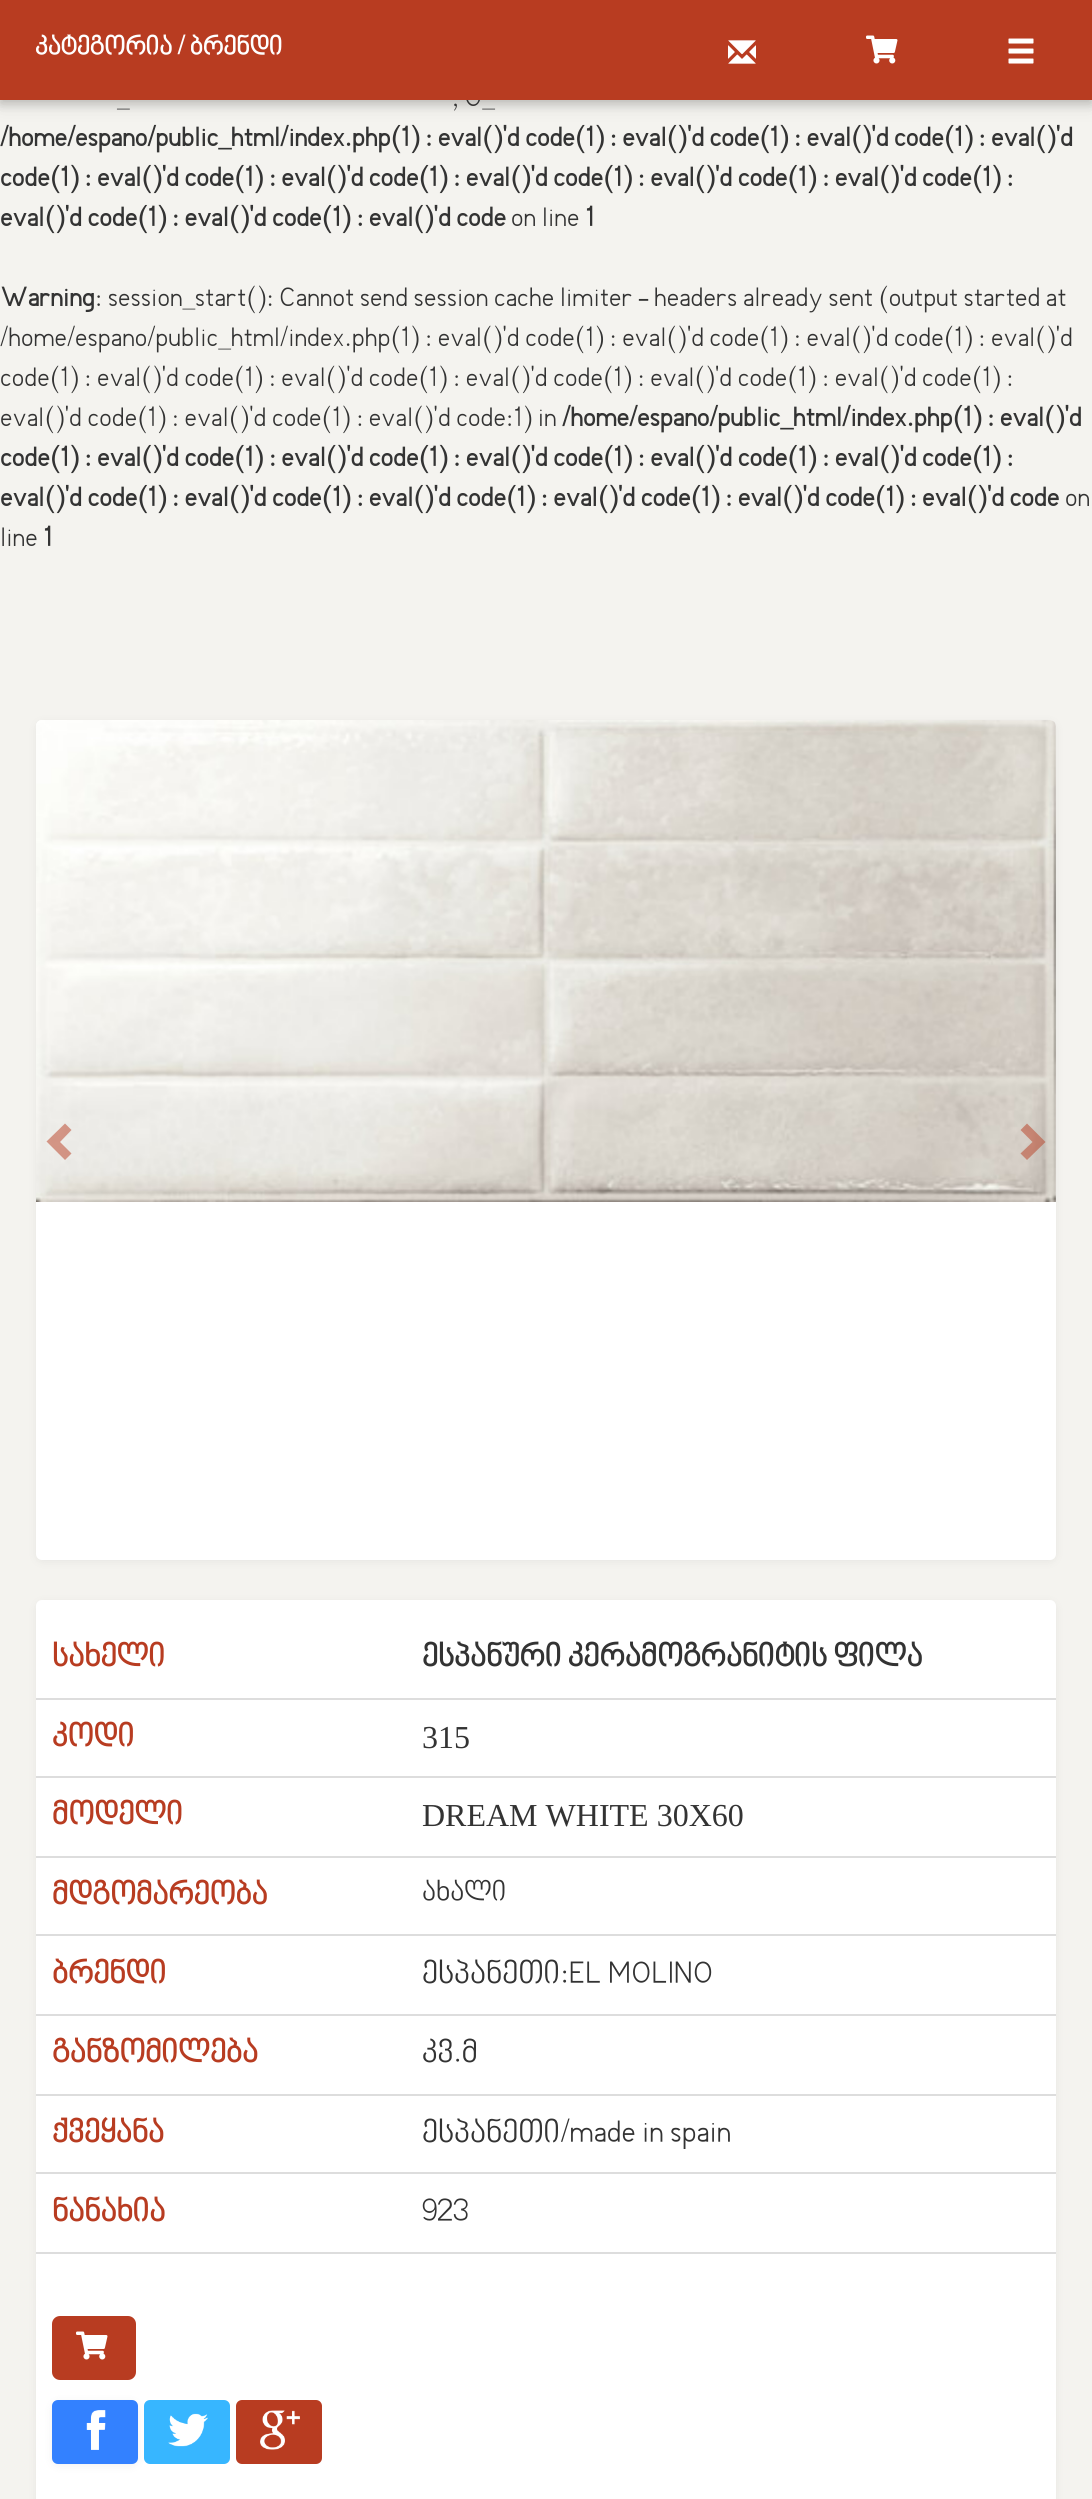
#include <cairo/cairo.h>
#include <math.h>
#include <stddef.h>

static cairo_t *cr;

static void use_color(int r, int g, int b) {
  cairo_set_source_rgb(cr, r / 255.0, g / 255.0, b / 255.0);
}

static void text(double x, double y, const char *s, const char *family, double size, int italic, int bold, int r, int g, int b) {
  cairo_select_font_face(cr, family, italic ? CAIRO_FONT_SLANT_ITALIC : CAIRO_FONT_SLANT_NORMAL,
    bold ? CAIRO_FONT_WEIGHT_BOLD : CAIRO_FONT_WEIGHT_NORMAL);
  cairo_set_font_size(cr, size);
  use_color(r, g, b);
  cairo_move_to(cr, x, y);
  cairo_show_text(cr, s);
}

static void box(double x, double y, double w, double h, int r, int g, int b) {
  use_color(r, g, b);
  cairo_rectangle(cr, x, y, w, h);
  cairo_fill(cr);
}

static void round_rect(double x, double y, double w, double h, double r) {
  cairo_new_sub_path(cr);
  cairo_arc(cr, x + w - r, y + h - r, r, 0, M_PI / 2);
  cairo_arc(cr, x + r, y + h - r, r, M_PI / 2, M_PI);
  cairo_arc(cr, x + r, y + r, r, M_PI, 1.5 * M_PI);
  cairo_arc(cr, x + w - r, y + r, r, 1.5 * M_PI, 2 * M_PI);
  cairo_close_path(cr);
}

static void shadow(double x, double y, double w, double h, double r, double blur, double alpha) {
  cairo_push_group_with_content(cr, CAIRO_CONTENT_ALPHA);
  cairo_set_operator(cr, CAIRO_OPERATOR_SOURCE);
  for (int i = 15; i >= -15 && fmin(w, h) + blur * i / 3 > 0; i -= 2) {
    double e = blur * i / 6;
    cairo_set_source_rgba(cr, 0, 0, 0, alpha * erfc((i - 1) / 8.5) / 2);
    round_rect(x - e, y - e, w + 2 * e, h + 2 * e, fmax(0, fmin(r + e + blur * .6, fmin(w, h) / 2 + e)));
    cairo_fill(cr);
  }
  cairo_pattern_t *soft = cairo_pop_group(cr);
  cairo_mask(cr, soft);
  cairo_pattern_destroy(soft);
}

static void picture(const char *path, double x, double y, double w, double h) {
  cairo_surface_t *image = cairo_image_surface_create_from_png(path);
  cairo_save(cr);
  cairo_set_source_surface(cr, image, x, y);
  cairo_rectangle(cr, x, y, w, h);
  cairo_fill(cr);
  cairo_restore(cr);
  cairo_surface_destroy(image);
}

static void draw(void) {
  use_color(244, 243, 239);
  cairo_paint(cr);
  use_color(0, 0, 0);
  shadow(0, 4, 1092, 100, 0, 10, 0.12);
  shadow(0, 4, 1092, 100, 0, 5, 0.16);
  shadow(40, 726, 1012, 832, 2, 6, 0.1);
  use_color(255, 255, 255);
  round_rect(36, 720, 1020, 840, 6);
  cairo_fill(cr);
  picture("img_04.png", 36, 720, 1020, 482);
  cairo_set_source_rgba(cr, 0.722, 0.235, 0.129, 0.5);
  cairo_new_path(cr);
  cairo_move_to(cr, 71.5, 1130);
  cairo_line_to(cr, 60, 1142);
  cairo_line_to(cr, 71.5, 1153.5);
  cairo_line_to(cr, 65, 1160);
  cairo_line_to(cr, 46.5, 1141.5);
  cairo_line_to(cr, 65, 1123.5);
  cairo_close_path(cr);
  cairo_fill(cr);
  cairo_new_path(cr);
  cairo_move_to(cr, 1045.5, 1142);
  cairo_line_to(cr, 1027, 1160);
  cairo_line_to(cr, 1020.5, 1153.5);
  cairo_line_to(cr, 1032.5, 1142);
  cairo_line_to(cr, 1020.5, 1130);
  cairo_line_to(cr, 1027, 1123.5);
  cairo_close_path(cr);
  cairo_fill(cr);
  use_color(0, 0, 0);
  shadow(40, 1606, 1012, 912, 2, 6, 0.1);
  use_color(255, 255, 255);
  round_rect(36, 1600, 1020, 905, 6);
  cairo_fill(cr);
  box(36, 1698, 1020, 2, 221, 221, 221);
  box(36, 1776, 1020, 2, 221, 221, 221);
  box(36, 1856, 1020, 2, 221, 221, 221);
  box(36, 1934, 1020, 2, 221, 221, 221);
  box(36, 2014, 1020, 2, 221, 221, 221);
  box(36, 2094, 1020, 2, 221, 221, 221);
  box(36, 2172, 1020, 2, 221, 221, 221);
  box(36, 2252, 1020, 2, 221, 221, 221);
  use_color(184, 60, 33);
  round_rect(52, 2316, 84, 64, 8);
  cairo_fill(cr);
  picture("img_02.png", 76, 2331, 32, 29);
  use_color(0, 0, 0);
  shadow(56, 2406, 78, 56, 2, 6, 0.1);
  use_color(51, 129, 255);
  round_rect(52, 2400, 86, 64, 6);
  cairo_fill(cr);
  picture("img_05.png", 86, 2410, 20, 40);
  use_color(55, 182, 255);
  round_rect(144, 2400, 86, 64, 6);
  cairo_fill(cr);
  picture("img_06.png", 168, 2413, 40, 34);
  use_color(184, 60, 33);
  round_rect(236, 2400, 86, 64, 6);
  cairo_fill(cr);
  picture("img_07.png", 260, 2410, 40, 40);
  text(52, 1668, "სახელი", "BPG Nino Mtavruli", 32, 0, 1, 184, 60, 33);
  text(422, 1668, "ესპანური კერამოგრანიტის ფილა", "BPG Nino Mtavruli", 32, 0, 1, 51, 51, 51);
  text(52, 1748, "კოდი", "BPG Nino Mtavruli", 32, 0, 1, 184, 60, 33);
  text(422, 1748, "315", "Liberation Serif", 32, 0, 0, 51, 51, 51);
  text(52, 1826, "მოდელი", "BPG Nino Mtavruli", 32, 0, 1, 184, 60, 33);
  text(422, 1826, "DREAM WHITE 30X60", "Liberation Serif", 32, 0, 0, 51, 51, 51);
  text(52, 1906, "მდგომარეობა", "BPG Nino Mtavruli", 32, 0, 1, 184, 60, 33);
  text(422, 1902, "ახალი", "BPG Nino Mtavruli", 28, 0, 0, 51, 51, 51);
  text(52, 1985, "ბრენდი", "BPG Nino Mtavruli", 32, 0, 1, 184, 60, 33);
  text(422, 1985, "ესპანეთი:EL MOLINO", "BPG Nino Mtavruli", 32, 0, 0, 51, 51, 51);
  text(52, 2064, "განზომილება", "BPG Nino Mtavruli", 32, 0, 1, 184, 60, 33);
  text(422, 2064, "კვ.მ", "BPG Nino Mtavruli", 32, 0, 0, 51, 51, 51);
  text(52, 2144, "ქვეყანა", "BPG Nino Mtavruli", 32, 0, 1, 184, 60, 33);
  text(422, 2144, "ესპანეთი/made in spain", "BPG Nino Mtavruli", 32, 0, 0, 51, 51, 51);
  text(52, 2223, "ნანახია", "BPG Nino Mtavruli", 32, 0, 1, 184, 60, 33);
  text(422, 2223, "923", "BPG Nino Mtavruli", 32, 0, 0, 51, 51, 51);
  text(117, 108, "_", "BPG Nino Mtavruli", 28, 0, 0, 51, 51, 51);
  text(452, 108, ", O_", "BPG Nino Mtavruli", 28, 0, 0, 51, 51, 51);
  box(0, 0, 1092, 100, 184, 60, 33);
  picture("img_01.png", 728, 40, 28, 24);
  picture("img_02.png", 866, 35, 32, 29);
  picture("img_03.png", 1008, 38, 26, 26);
  text(35, 56, "კატეგორია / ბრენდი", "BPG Nino Mtavruli", 26, 0, 1, 255, 255, 255);
  text(0, 148, "/home/espano/public_html/index.php(1) : eval()'d code(1) : eval()'d code(1) : eval()'d code(1) : eval()'d", "BPG Nino Mtavruli", 28, 0, 1, 51, 51, 51);
  text(0, 188, "code(1) : eval()'d code(1) : eval()'d code(1) : eval()'d code(1) : eval()'d code(1) : eval()'d code(1) :", "BPG Nino Mtavruli", 28, 0, 1, 51, 51, 51);
  text(0, 228, "eval()'d code(1) : eval()'d code(1) : eval()'d code", "BPG Nino Mtavruli", 28, 0, 1, 51, 51, 51);
  text(511, 228, "on line", "BPG Nino Mtavruli", 28, 0, 0, 51, 51, 51);
  text(585, 228, "1", "BPG Nino Mtavruli", 28, 0, 1, 51, 51, 51);
  text(0, 308, "Warning", "BPG Nino Mtavruli", 28, 0, 1, 51, 51, 51);
  text(95, 308, ": session_start(): Cannot send session cache limiter - headers already sent (output started at", "BPG Nino Mtavruli", 28, 0, 0, 51, 51, 51);
  text(0, 348, "/home/espano/public_html/index.php(1) : eval()'d code(1) : eval()'d code(1) : eval()'d code(1) : eval()'d", "BPG Nino Mtavruli", 28, 0, 0, 51, 51, 51);
  text(0, 388, "code(1) : eval()'d code(1) : eval()'d code(1) : eval()'d code(1) : eval()'d code(1) : eval()'d code(1) :", "BPG Nino Mtavruli", 28, 0, 0, 51, 51, 51);
  text(0, 428, "eval()'d code(1) : eval()'d code(1) : eval()'d code:1) in", "BPG Nino Mtavruli", 28, 0, 0, 51, 51, 51);
  text(562, 428, "/home/espano/public_html/index.php(1) : eval()'d", "BPG Nino Mtavruli", 28, 0, 1, 51, 51, 51);
  text(0, 468, "code(1) : eval()'d code(1) : eval()'d code(1) : eval()'d code(1) : eval()'d code(1) : eval()'d code(1) :", "BPG Nino Mtavruli", 28, 0, 1, 51, 51, 51);
  text(0, 508, "eval()'d code(1) : eval()'d code(1) : eval()'d code(1) : eval()'d code(1) : eval()'d code(1) : eval()'d code", "BPG Nino Mtavruli", 28, 0, 1, 51, 51, 51);
  text(1065, 508, "on", "BPG Nino Mtavruli", 28, 0, 0, 51, 51, 51);
  text(0, 548, "line", "BPG Nino Mtavruli", 28, 0, 0, 51, 51, 51);
  text(43, 548, "1", "BPG Nino Mtavruli", 28, 0, 1, 51, 51, 51);
}

int main(void) {
  cairo_surface_t *surface = cairo_image_surface_create(CAIRO_FORMAT_RGB24, 1092, 2499);
  cr = cairo_create(surface);
  cairo_font_options_t *options = cairo_font_options_create();
  cairo_font_options_set_hint_metrics(options, CAIRO_HINT_METRICS_OFF);
  cairo_font_options_set_hint_style(options, CAIRO_HINT_STYLE_NONE);
  cairo_set_font_options(cr, options);
  cairo_set_miter_limit(cr, 4);
  draw();
  cairo_surface_write_to_png(surface, "out.png");
  cairo_font_options_destroy(options);
  cairo_destroy(cr);
  cairo_surface_destroy(surface);
  return 0;
}
